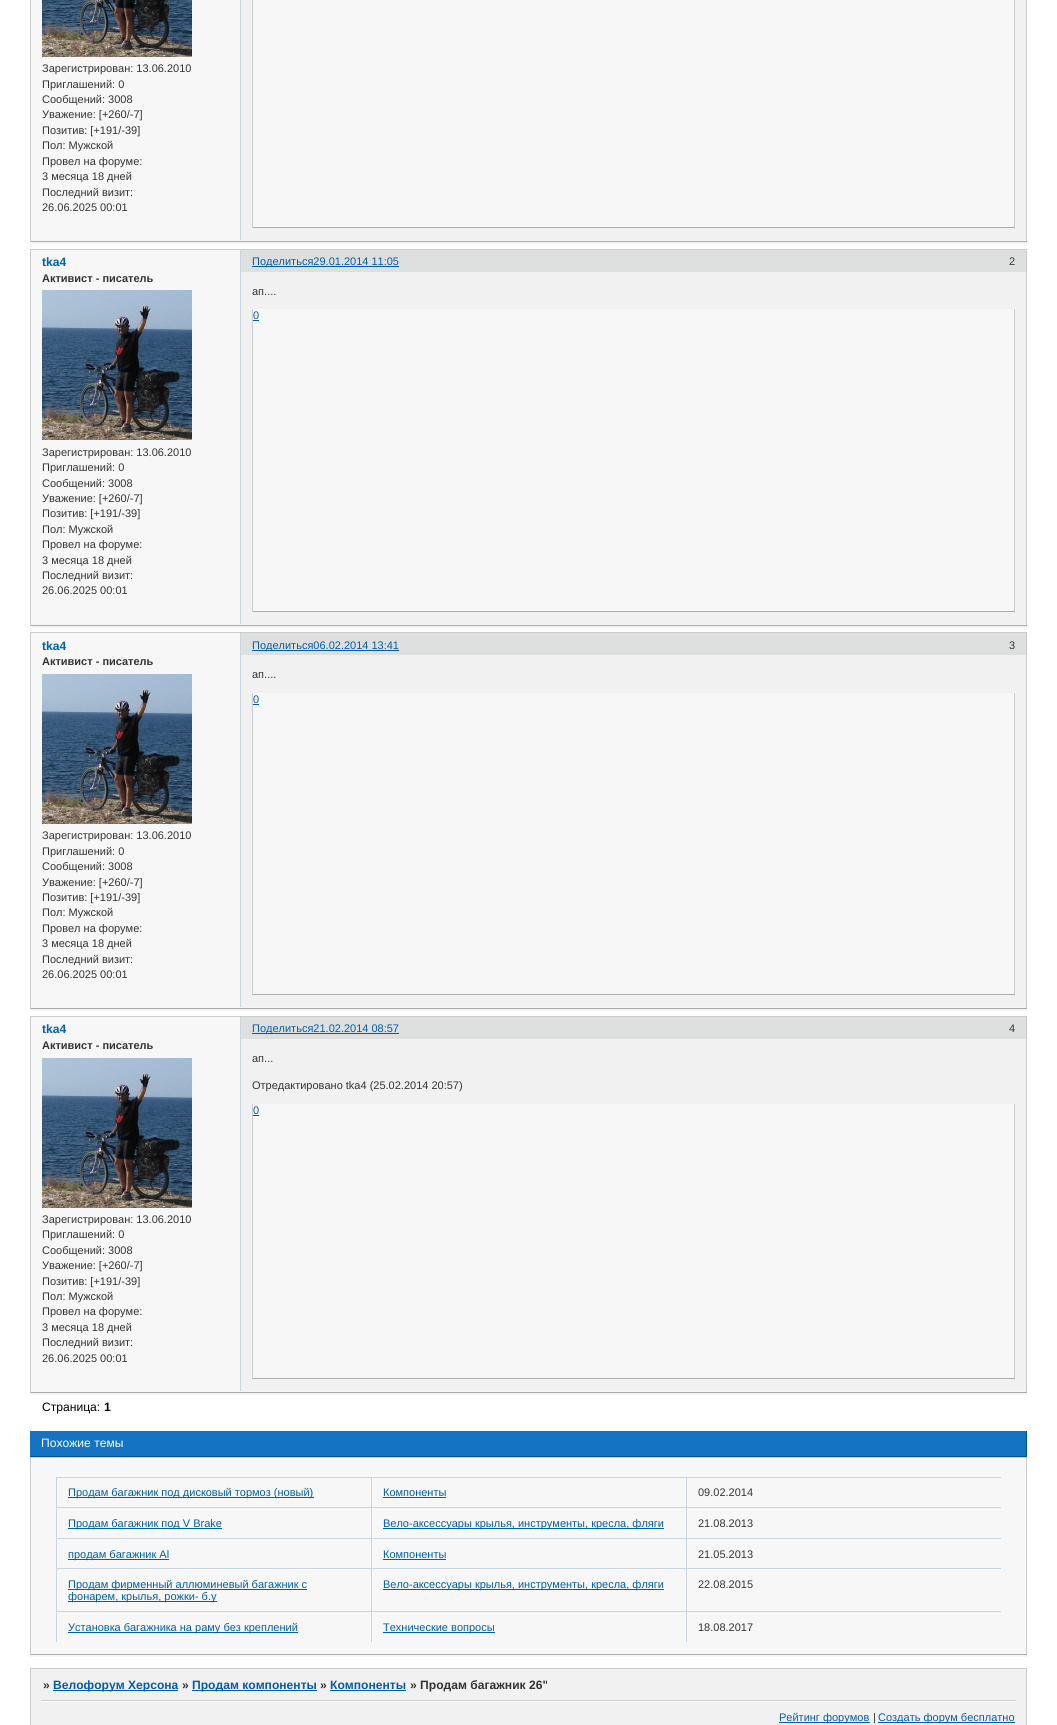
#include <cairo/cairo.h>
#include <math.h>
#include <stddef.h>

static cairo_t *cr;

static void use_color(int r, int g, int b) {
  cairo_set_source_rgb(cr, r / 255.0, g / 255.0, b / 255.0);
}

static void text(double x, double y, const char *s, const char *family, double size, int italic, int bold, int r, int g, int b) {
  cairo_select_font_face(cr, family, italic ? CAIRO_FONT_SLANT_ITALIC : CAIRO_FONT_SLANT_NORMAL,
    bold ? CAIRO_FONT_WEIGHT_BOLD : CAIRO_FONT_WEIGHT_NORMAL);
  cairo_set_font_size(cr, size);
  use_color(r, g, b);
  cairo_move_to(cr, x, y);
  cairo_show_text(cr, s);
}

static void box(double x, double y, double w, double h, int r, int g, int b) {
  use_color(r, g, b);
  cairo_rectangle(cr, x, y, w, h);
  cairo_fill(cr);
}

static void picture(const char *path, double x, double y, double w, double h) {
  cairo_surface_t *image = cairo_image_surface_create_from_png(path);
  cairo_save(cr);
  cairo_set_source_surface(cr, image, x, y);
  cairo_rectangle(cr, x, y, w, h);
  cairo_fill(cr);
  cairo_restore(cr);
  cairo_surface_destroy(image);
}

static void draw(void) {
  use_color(255, 255, 255);
  cairo_paint(cr);
  box(30, 242, 997, 2, 245, 245, 245);
  box(31, 0, 995, 241, 247, 247, 247);
  box(1026, 0, 1, 242, 204, 204, 204);
  box(30, 241, 997, 1, 170, 170, 170);
  box(30, 0, 1, 242, 204, 204, 204);
  picture("img_01.png", 42, 0, 150, 57);
  box(241, 0, 785, 240, 241, 241, 241);
  box(240, 0, 1, 240, 201, 214, 224);
  box(253, 0, 761, 227, 247, 247, 247);
  box(1014, 0, 1, 228, 204, 204, 204);
  box(252, 227, 763, 1, 170, 170, 170);
  box(252, 0, 1, 228, 204, 204, 204);
  box(30, 626, 997, 2, 245, 245, 245);
  box(240, 250, 1, 23, 201, 214, 224);
  box(31, 272, 995, 353, 247, 247, 247);
  box(30, 249, 997, 1, 204, 204, 204);
  box(1026, 249, 1, 377, 204, 204, 204);
  box(30, 625, 997, 1, 170, 170, 170);
  box(30, 249, 1, 24, 204, 204, 204);
  box(30, 272, 1, 354, 204, 204, 204);
  picture("img_02.png", 42, 290, 150, 150);
  box(241, 272, 785, 352, 241, 241, 241);
  box(240, 272, 1, 352, 201, 214, 224);
  box(253, 309, 761, 302, 247, 247, 247);
  box(1014, 309, 1, 303, 204, 204, 204);
  box(252, 611, 763, 1, 170, 170, 170);
  box(252, 309, 1, 303, 204, 204, 204);
  box(253, 320, 6, 1, 0, 94, 171);
  box(31, 250, 209, 22, 247, 247, 247);
  box(241, 250, 785, 22, 222, 223, 223);
  box(252, 266, 147, 1, 0, 94, 171);
  box(30, 1009, 997, 2, 245, 245, 245);
  box(240, 633, 1, 23, 201, 214, 224);
  box(31, 655, 995, 353, 247, 247, 247);
  box(30, 632, 997, 1, 204, 204, 204);
  box(1026, 632, 1, 377, 204, 204, 204);
  box(30, 1008, 997, 1, 170, 170, 170);
  box(30, 632, 1, 24, 204, 204, 204);
  box(30, 655, 1, 354, 204, 204, 204);
  picture("img_02.png", 42, 674, 150, 150);
  box(241, 655, 785, 352, 241, 241, 241);
  box(240, 655, 1, 352, 201, 214, 224);
  box(253, 693, 761, 301, 247, 247, 247);
  box(1014, 693, 1, 302, 204, 204, 204);
  box(252, 994, 763, 1, 170, 170, 170);
  box(252, 693, 1, 302, 204, 204, 204);
  box(253, 704, 6, 1, 0, 94, 171);
  box(31, 633, 209, 22, 247, 247, 247);
  box(241, 633, 785, 22, 222, 223, 223);
  box(252, 650, 147, 1, 0, 94, 171);
  box(30, 1393, 997, 2, 245, 245, 245);
  box(240, 1017, 1, 23, 201, 214, 224);
  box(31, 1039, 995, 353, 247, 247, 247);
  box(30, 1016, 997, 1, 204, 204, 204);
  box(1026, 1016, 1, 377, 204, 204, 204);
  box(30, 1392, 997, 1, 170, 170, 170);
  box(30, 1016, 1, 24, 204, 204, 204);
  box(30, 1039, 1, 354, 204, 204, 204);
  picture("img_02.png", 42, 1058, 150, 150);
  box(241, 1039, 785, 352, 241, 241, 241);
  box(240, 1039, 1, 352, 201, 214, 224);
  box(253, 1104, 761, 274, 247, 247, 247);
  box(1014, 1104, 1, 275, 204, 204, 204);
  box(252, 1378, 763, 1, 170, 170, 170);
  box(252, 1104, 1, 275, 204, 204, 204);
  box(253, 1115, 6, 1, 0, 94, 171);
  box(31, 1017, 209, 22, 247, 247, 247);
  box(241, 1017, 785, 22, 222, 223, 223);
  box(252, 1033, 147, 1, 0, 94, 171);
  box(30, 1655, 997, 2, 245, 245, 245);
  box(30, 1431, 996, 25, 20, 116, 195);
  box(1026, 1431, 1, 26, 0, 79, 144);
  box(30, 1456, 997, 1, 0, 79, 144);
  box(31, 1458, 995, 196, 247, 247, 247);
  box(30, 1457, 997, 1, 204, 204, 204);
  box(1026, 1457, 1, 198, 204, 204, 204);
  box(30, 1654, 997, 1, 170, 170, 170);
  box(30, 1457, 1, 198, 204, 204, 204);
  box(56, 1477, 945, 1, 201, 214, 224);
  box(56, 1477, 1, 30, 201, 214, 224);
  box(68, 1497, 246, 1, 0, 94, 171);
  box(371, 1477, 1, 30, 201, 214, 224);
  box(383, 1497, 63, 1, 0, 94, 171);
  box(686, 1477, 1, 30, 201, 214, 224);
  box(56, 1507, 945, 1, 201, 214, 224);
  box(56, 1507, 1, 31, 201, 214, 224);
  box(68, 1528, 154, 1, 0, 94, 171);
  box(371, 1507, 1, 31, 201, 214, 224);
  box(383, 1528, 281, 1, 0, 94, 171);
  box(686, 1507, 1, 31, 201, 214, 224);
  box(56, 1538, 945, 1, 201, 214, 224);
  box(56, 1538, 1, 30, 201, 214, 224);
  box(68, 1559, 101, 1, 0, 94, 171);
  box(371, 1538, 1, 30, 201, 214, 224);
  box(383, 1559, 63, 1, 0, 94, 171);
  box(686, 1538, 1, 30, 201, 214, 224);
  box(56, 1568, 945, 1, 201, 214, 224);
  box(56, 1568, 1, 43, 201, 214, 224);
  box(68, 1589, 239, 1, 0, 94, 171);
  box(68, 1601, 149, 1, 0, 94, 171);
  box(371, 1568, 1, 43, 201, 214, 224);
  box(383, 1589, 281, 1, 0, 94, 171);
  box(686, 1568, 1, 43, 201, 214, 224);
  box(56, 1611, 945, 1, 201, 214, 224);
  box(56, 1611, 1, 31, 201, 214, 224);
  box(68, 1632, 230, 1, 0, 94, 171);
  box(371, 1611, 1, 31, 201, 214, 224);
  box(383, 1632, 112, 1, 0, 94, 171);
  box(686, 1611, 1, 31, 201, 214, 224);
  box(30, 1668, 997, 1, 204, 204, 204);
  box(1026, 1700, 1, 25, 204, 204, 204);
  box(1026, 1668, 1, 34, 204, 204, 204);
  box(30, 1700, 1, 25, 204, 204, 204);
  box(30, 1668, 1, 34, 204, 204, 204);
  box(31, 1669, 995, 56, 241, 241, 241);
  box(53, 1690, 125, 1, 0, 94, 171);
  box(192, 1690, 125, 1, 0, 94, 171);
  box(330, 1690, 76, 1, 0, 94, 171);
  box(41, 1700, 975, 1, 204, 204, 204);
  box(41, 1701, 975, 1, 255, 255, 255);
  box(779, 1722, 91, 1, 0, 94, 171);
  box(878, 1722, 137, 1, 0, 94, 171);
  text(42, 72, "Зарегистрирован: 13.06.2010", "Liberation Sans", 11, 0, 0, 51, 51, 51);
  text(42, 88, "Приглашений: 0", "Liberation Sans", 11, 0, 0, 51, 51, 51);
  text(42, 103, "Сообщений: 3008", "Liberation Sans", 11, 0, 0, 51, 51, 51);
  text(42, 118, "Уважение: [+260/-7]", "Liberation Sans", 11, 0, 0, 51, 51, 51);
  text(42, 134, "Позитив: [+191/-39]", "Liberation Sans", 11, 0, 0, 51, 51, 51);
  text(42, 149, "Пол: Мужской", "Liberation Sans", 11, 0, 0, 51, 51, 51);
  text(42, 165, "Провел на форуме:", "Liberation Sans", 11, 0, 0, 51, 51, 51);
  text(42, 180, "3 месяца 18 дней", "Liberation Sans", 11, 0, 0, 51, 51, 51);
  text(42, 196, "Последний визит:", "Liberation Sans", 11, 0, 0, 51, 51, 51);
  text(42, 211, "26.06.2025 00:01", "Liberation Sans", 11, 0, 0, 51, 51, 51);
  text(42, 266, "tka4", "Liberation Sans", 12.1, 0, 1, 0, 94, 171);
  text(42, 282, "Активист - писатель", "Liberation Sans", 11, 0, 1, 51, 51, 51);
  text(42, 456, "Зарегистрирован: 13.06.2010", "Liberation Sans", 11, 0, 0, 51, 51, 51);
  text(42, 471, "Приглашений: 0", "Liberation Sans", 11, 0, 0, 51, 51, 51);
  text(42, 487, "Сообщений: 3008", "Liberation Sans", 11, 0, 0, 51, 51, 51);
  text(42, 502, "Уважение: [+260/-7]", "Liberation Sans", 11, 0, 0, 51, 51, 51);
  text(42, 517, "Позитив: [+191/-39]", "Liberation Sans", 11, 0, 0, 51, 51, 51);
  text(42, 533, "Пол: Мужской", "Liberation Sans", 11, 0, 0, 51, 51, 51);
  text(42, 548, "Провел на форуме:", "Liberation Sans", 11, 0, 0, 51, 51, 51);
  text(42, 564, "3 месяца 18 дней", "Liberation Sans", 11, 0, 0, 51, 51, 51);
  text(42, 579, "Последний визит:", "Liberation Sans", 11, 0, 0, 51, 51, 51);
  text(42, 594, "26.06.2025 00:01", "Liberation Sans", 11, 0, 0, 51, 51, 51);
  text(252, 295, "ап....", "Liberation Sans", 11, 0, 0, 51, 51, 51);
  text(253, 319, "0", "Liberation Sans", 11, 0, 0, 0, 94, 171);
  text(252, 265, "Поделиться29.01.2014 11:05", "Liberation Sans", 11, 0, 0, 0, 94, 171);
  text(1009, 265, "2", "Liberation Sans", 11, 0, 0, 51, 51, 51);
  text(42, 650, "tka4", "Liberation Sans", 12.1, 0, 1, 0, 94, 171);
  text(42, 665, "Активист - писатель", "Liberation Sans", 11, 0, 1, 51, 51, 51);
  text(42, 839, "Зарегистрирован: 13.06.2010", "Liberation Sans", 11, 0, 0, 51, 51, 51);
  text(42, 855, "Приглашений: 0", "Liberation Sans", 11, 0, 0, 51, 51, 51);
  text(42, 870, "Сообщений: 3008", "Liberation Sans", 11, 0, 0, 51, 51, 51);
  text(42, 886, "Уважение: [+260/-7]", "Liberation Sans", 11, 0, 0, 51, 51, 51);
  text(42, 901, "Позитив: [+191/-39]", "Liberation Sans", 11, 0, 0, 51, 51, 51);
  text(42, 916, "Пол: Мужской", "Liberation Sans", 11, 0, 0, 51, 51, 51);
  text(42, 932, "Провел на форуме:", "Liberation Sans", 11, 0, 0, 51, 51, 51);
  text(42, 947, "3 месяца 18 дней", "Liberation Sans", 11, 0, 0, 51, 51, 51);
  text(42, 963, "Последний визит:", "Liberation Sans", 11, 0, 0, 51, 51, 51);
  text(42, 978, "26.06.2025 00:01", "Liberation Sans", 11, 0, 0, 51, 51, 51);
  text(252, 678, "ап....", "Liberation Sans", 11, 0, 0, 51, 51, 51);
  text(253, 703, "0", "Liberation Sans", 11, 0, 0, 0, 94, 171);
  text(252, 649, "Поделиться06.02.2014 13:41", "Liberation Sans", 11, 0, 0, 0, 94, 171);
  text(1009, 649, "3", "Liberation Sans", 11, 0, 0, 51, 51, 51);
  text(42, 1033, "tka4", "Liberation Sans", 12.1, 0, 1, 0, 94, 171);
  text(42, 1049, "Активист - писатель", "Liberation Sans", 11, 0, 1, 51, 51, 51);
  text(42, 1223, "Зарегистрирован: 13.06.2010", "Liberation Sans", 11, 0, 0, 51, 51, 51);
  text(42, 1238, "Приглашений: 0", "Liberation Sans", 11, 0, 0, 51, 51, 51);
  text(42, 1254, "Сообщений: 3008", "Liberation Sans", 11, 0, 0, 51, 51, 51);
  text(42, 1269, "Уважение: [+260/-7]", "Liberation Sans", 11, 0, 0, 51, 51, 51);
  text(42, 1285, "Позитив: [+191/-39]", "Liberation Sans", 11, 0, 0, 51, 51, 51);
  text(42, 1300, "Пол: Мужской", "Liberation Sans", 11, 0, 0, 51, 51, 51);
  text(42, 1315, "Провел на форуме:", "Liberation Sans", 11, 0, 0, 51, 51, 51);
  text(42, 1331, "3 месяца 18 дней", "Liberation Sans", 11, 0, 0, 51, 51, 51);
  text(42, 1346, "Последний визит:", "Liberation Sans", 11, 0, 0, 51, 51, 51);
  text(42, 1362, "26.06.2025 00:01", "Liberation Sans", 11, 0, 0, 51, 51, 51);
  text(252, 1062, "ап...", "Liberation Sans", 11, 0, 0, 51, 51, 51);
  text(252, 1089, "Отредактировано tka4 (25.02.2014 20:57)", "Liberation Sans", 11, 0, 0, 51, 51, 51);
  text(253, 1114, "0", "Liberation Sans", 11, 0, 0, 0, 94, 171);
  text(252, 1032, "Поделиться21.02.2014 08:57", "Liberation Sans", 11, 0, 0, 0, 94, 171);
  text(1009, 1032, "4", "Liberation Sans", 11, 0, 0, 51, 51, 51);
  text(42, 1411, "Страница:", "Liberation Sans", 12.1, 0, 0, 0, 0, 0);
  text(104, 1411, "1", "Liberation Sans", 12.1, 0, 1, 0, 0, 0);
  text(41, 1447, "Похожие темы", "Liberation Sans", 12.1, 0, 0, 255, 255, 255);
  text(68, 1496, "Продам багажник под дисковый тормоз (новый)", "Liberation Sans", 11, 0, 0, 0, 94, 171);
  text(383, 1496, "Компоненты", "Liberation Sans", 11, 0, 0, 0, 94, 171);
  text(698, 1496, "09.02.2014", "Liberation Sans", 11, 0, 0, 51, 51, 51);
  text(68, 1527, "Продам багажник под V Brake", "Liberation Sans", 11, 0, 0, 0, 94, 171);
  text(383, 1527, "Вело-аксессуары крылья, инструменты, кресла, фляги", "Liberation Sans", 11, 0, 0, 0, 94, 171);
  text(698, 1527, "21.08.2013", "Liberation Sans", 11, 0, 0, 51, 51, 51);
  text(68, 1558, "продам багажник Al", "Liberation Sans", 11, 0, 0, 0, 94, 171);
  text(383, 1558, "Компоненты", "Liberation Sans", 11, 0, 0, 0, 94, 171);
  text(698, 1558, "21.05.2013", "Liberation Sans", 11, 0, 0, 51, 51, 51);
  text(68, 1588, "Продам фирменный аллюминевый багажник с", "Liberation Sans", 11, 0, 0, 0, 94, 171);
  text(68, 1600, "фонарем, крылья, рожки- б.у", "Liberation Sans", 11, 0, 0, 0, 94, 171);
  text(383, 1588, "Вело-аксессуары крылья, инструменты, кресла, фляги", "Liberation Sans", 11, 0, 0, 0, 94, 171);
  text(698, 1588, "22.08.2015", "Liberation Sans", 11, 0, 0, 51, 51, 51);
  text(68, 1631, "Установка багажника на раму без креплений", "Liberation Sans", 11, 0, 0, 0, 94, 171);
  text(383, 1631, "Технические вопросы", "Liberation Sans", 11, 0, 0, 0, 94, 171);
  text(698, 1631, "18.08.2017", "Liberation Sans", 11, 0, 0, 51, 51, 51);
  text(43, 1689, "»", "Liberation Sans", 12.1, 0, 1, 51, 51, 51);
  text(53, 1689, "Велофорум Херсона", "Liberation Sans", 12.1, 0, 1, 0, 94, 171);
  text(182, 1689, "»", "Liberation Sans", 12.1, 0, 1, 51, 51, 51);
  text(192, 1689, "Продам компоненты", "Liberation Sans", 12.1, 0, 1, 0, 94, 171);
  text(320, 1689, "»", "Liberation Sans", 12.1, 0, 1, 51, 51, 51);
  text(330, 1689, "Компоненты", "Liberation Sans", 12.1, 0, 1, 0, 94, 171);
  text(410, 1689, "» Продам багажник 26\"", "Liberation Sans", 12.1, 0, 1, 51, 51, 51);
  text(779, 1721, "Рейтинг форумов", "Liberation Sans", 11, 0, 0, 0, 94, 171);
  text(873, 1721, "|", "Liberation Sans", 11, 0, 0, 51, 51, 51);
  text(878, 1721, "Создать форум бесплатно", "Liberation Sans", 11, 0, 0, 0, 94, 171);
}

int main(void) {
  cairo_surface_t *surface = cairo_image_surface_create(CAIRO_FORMAT_RGB24, 1057, 1725);
  cr = cairo_create(surface);
  cairo_font_options_t *options = cairo_font_options_create();
  cairo_font_options_set_hint_metrics(options, CAIRO_HINT_METRICS_OFF);
  cairo_font_options_set_hint_style(options, CAIRO_HINT_STYLE_NONE);
  cairo_set_font_options(cr, options);
  cairo_set_miter_limit(cr, 4);
  draw();
  cairo_surface_write_to_png(surface, "out.png");
  cairo_font_options_destroy(options);
  cairo_destroy(cr);
  cairo_surface_destroy(surface);
  return 0;
}
